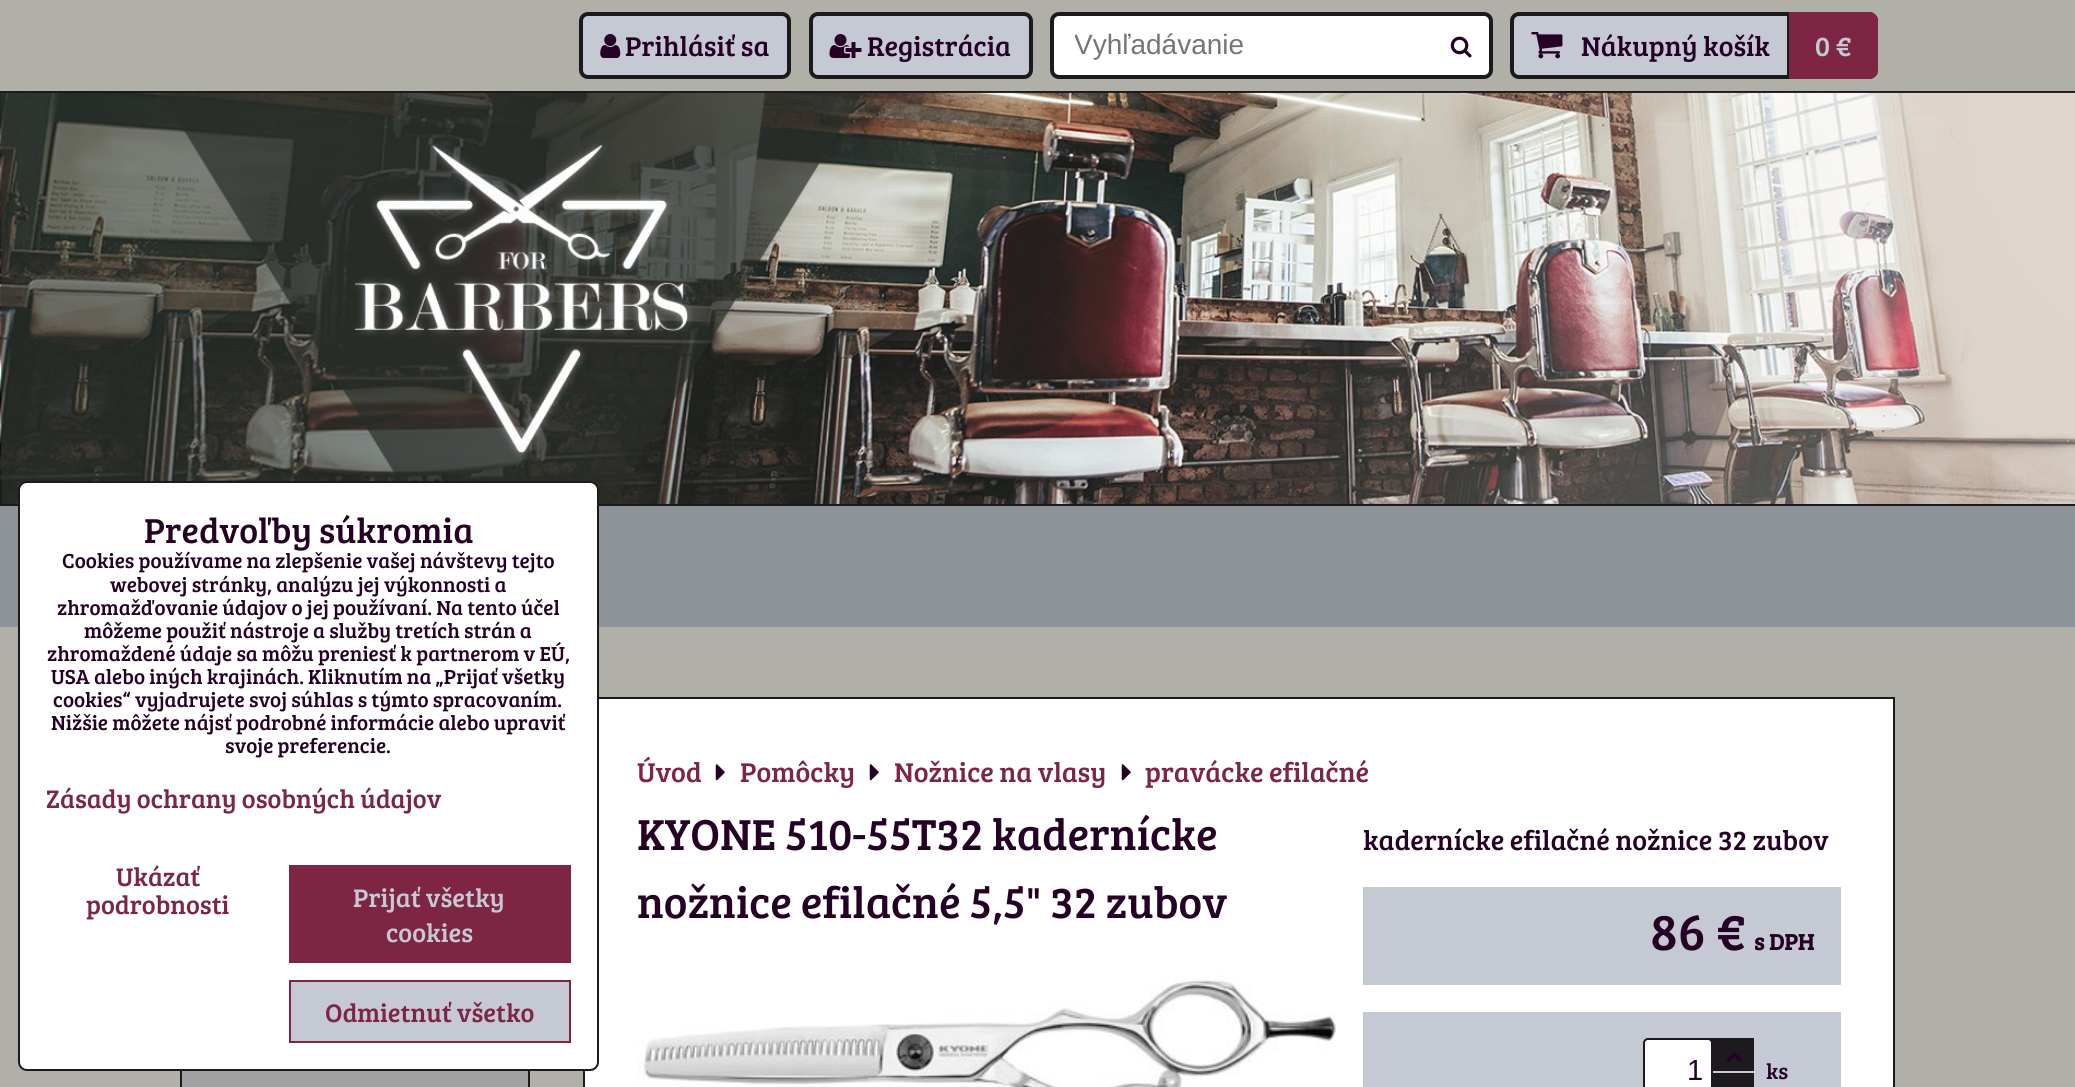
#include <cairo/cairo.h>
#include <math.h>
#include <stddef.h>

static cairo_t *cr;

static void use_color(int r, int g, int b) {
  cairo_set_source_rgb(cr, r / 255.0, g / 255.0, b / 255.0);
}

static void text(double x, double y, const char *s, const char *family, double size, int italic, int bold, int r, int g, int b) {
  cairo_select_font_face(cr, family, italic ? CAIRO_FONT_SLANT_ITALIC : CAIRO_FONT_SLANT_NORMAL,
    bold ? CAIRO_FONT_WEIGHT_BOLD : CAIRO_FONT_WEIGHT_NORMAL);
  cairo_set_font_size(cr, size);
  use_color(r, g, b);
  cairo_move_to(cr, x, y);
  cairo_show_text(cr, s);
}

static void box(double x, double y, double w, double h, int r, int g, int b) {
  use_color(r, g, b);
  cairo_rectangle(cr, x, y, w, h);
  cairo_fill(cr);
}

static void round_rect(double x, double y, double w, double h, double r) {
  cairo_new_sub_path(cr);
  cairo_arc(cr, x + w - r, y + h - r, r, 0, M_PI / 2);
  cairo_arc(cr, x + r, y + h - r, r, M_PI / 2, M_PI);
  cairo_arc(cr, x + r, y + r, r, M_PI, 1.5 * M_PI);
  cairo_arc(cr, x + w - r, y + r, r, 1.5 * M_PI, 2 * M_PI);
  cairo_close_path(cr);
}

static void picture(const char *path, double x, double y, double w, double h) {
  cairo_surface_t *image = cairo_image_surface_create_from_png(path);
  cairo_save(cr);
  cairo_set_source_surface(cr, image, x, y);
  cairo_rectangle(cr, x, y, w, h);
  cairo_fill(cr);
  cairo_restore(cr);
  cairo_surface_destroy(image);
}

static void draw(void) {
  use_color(176, 176, 168);
  cairo_paint(cr);
  box(0, 504, 2075, 2, 28, 26, 28);
  box(0, 91, 2075, 2, 28, 26, 28);
  picture("img_05.png", 0, 92, 2075, 412);
  box(0, 506, 2075, 121, 141, 148, 153);
  box(182, 1071, 346, 16, 161, 161, 161);
  cairo_rectangle(cr, 181, 698, 348, 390);
  use_color(28, 26, 28);
  cairo_stroke(cr);
  use_color(255, 255, 255);
  cairo_rectangle(cr, 584, 698, 1310, 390);
  cairo_fill_preserve(cr);
  use_color(28, 26, 28);
  cairo_stroke(cr);
  use_color(255, 255, 255);
  round_rect(19, 482, 579, 588, 8);
  cairo_fill_preserve(cr);
  use_color(28, 26, 28);
  cairo_stroke(cr);
  box(289, 865, 282, 98, 125, 37, 67);
  use_color(197, 201, 212);
  cairo_rectangle(cr, 290, 981, 280, 61);
  cairo_fill_preserve(cr);
  use_color(125, 37, 67);
  cairo_stroke(cr);
  use_color(197, 201, 212);
  round_rect(581, 14, 208, 63, 7);
  cairo_fill_preserve(cr);
  use_color(28, 26, 28);
  cairo_set_line_width(cr, 4);
  cairo_stroke(cr);
  picture("img_01.png", 600, 34, 21, 24);
  use_color(197, 201, 212);
  round_rect(811, 14, 220, 63, 7);
  cairo_fill_preserve(cr);
  use_color(28, 26, 28);
  cairo_stroke(cr);
  picture("img_02.png", 829, 34, 33, 24);
  use_color(255, 255, 255);
  round_rect(1052, 14, 439, 63, 7);
  cairo_fill_preserve(cr);
  use_color(28, 26, 28);
  cairo_stroke(cr);
  picture("img_03.png", 1450, 36, 22, 22);
  use_color(197, 201, 212);
  round_rect(1512, 14, 364, 63, 7);
  cairo_fill_preserve(cr);
  use_color(28, 26, 28);
  cairo_stroke(cr);
  picture("img_04.png", 1531, 32, 32, 27);
  use_color(125, 37, 67);
  cairo_new_path(cr);
  cairo_move_to(cr, 1787, 12);
  cairo_line_to(cr, 1869, 12);
  cairo_curve_to(cr, 1874, 12, 1878, 16, 1878, 21);
  cairo_line_to(cr, 1878, 70);
  cairo_curve_to(cr, 1878, 75, 1874, 79, 1869, 79);
  cairo_line_to(cr, 1787, 79);
  cairo_close_path(cr);
  cairo_fill(cr);
  box(1787, 12, 2, 67, 28, 26, 28);
  picture("img_06.png", 715, 764, 10, 17);
  picture("img_06.png", 869, 764, 10, 17);
  picture("img_06.png", 1121, 764, 10, 17);
  picture("img_07.png", 637, 975, 700, 112);
  box(1363, 887, 478, 98, 197, 201, 212);
  box(1363, 1012, 478, 75, 197, 201, 212);
  box(1708, 1038, 46, 49, 28, 26, 28);
  use_color(255, 255, 255);
  round_rect(1644, 1039, 68, 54, 4);
  cairo_fill_preserve(cr);
  use_color(28, 26, 28);
  cairo_set_line_width(cr, 2);
  cairo_stroke(cr);
  picture("img_08.png", 1726, 1052, 16, 10);
  box(1713, 1071, 41, 2, 197, 201, 212);
  picture("img_09.png", 1727, 1086, 14, 1);
  text(144, 543, "Predvoľby súkromia", "Bree Serif", 35.75, 0, 0, 38, 1, 38);
  text(62, 568, "Cookies používame na zlepšenie vašej návštevy tejto", "Bree Serif", 21, 0, 0, 38, 1, 38);
  text(110, 592, "webovej stránky, analýzu jej výkonnosti a", "Bree Serif", 21, 0, 0, 38, 1, 38);
  text(57, 615, "zhromažďovanie údajov o jej používaní. Na tento účel", "Bree Serif", 21, 0, 0, 38, 1, 38);
  text(84, 638, "môžeme použiť nástroje a služby tretích strán a", "Bree Serif", 21, 0, 0, 38, 1, 38);
  text(47, 661, "zhromaždené údaje sa môžu preniesť k partnerom v EÚ,", "Bree Serif", 21, 0, 0, 38, 1, 38);
  text(51, 684, "USA alebo iných krajinách. Kliknutím na „Prijať všetky", "Bree Serif", 21, 0, 0, 38, 1, 38);
  text(53, 707, "cookies“ vyjadrujete svoj súhlas s týmto spracovaním.", "Bree Serif", 21, 0, 0, 38, 1, 38);
  text(51, 730, "Nižšie môžete nájsť podrobné informácie alebo upraviť", "Bree Serif", 21, 0, 0, 38, 1, 38);
  text(225, 753, "svoje preferencie.", "Bree Serif", 21, 0, 0, 38, 1, 38);
  text(46, 808, "Zásady ochrany osobných údajov", "Bree Serif", 26.25, 0, 0, 125, 37, 67);
  text(116, 886, "Ukázať", "Bree Serif", 26.25, 0, 0, 125, 37, 67);
  text(86, 914, "podrobnosti", "Bree Serif", 26.25, 0, 0, 125, 37, 67);
  text(353, 907, "Prijať všetky", "Bree Serif", 26.25, 0, 0, 197, 201, 212);
  text(386, 942, "cookies", "Bree Serif", 26.25, 0, 0, 197, 201, 212);
  text(325, 1022, "Odmietnuť všetko", "Bree Serif", 26.25, 0, 0, 125, 37, 67);
  text(625, 56, "Prihlásiť sa", "Bree Serif", 28, 0, 0, 38, 1, 38);
  text(867, 56, "Registrácia", "Bree Serif", 28, 0, 0, 38, 1, 38);
  cairo_save(cr);
  cairo_rectangle(cr, 1075, 30, 362, 31);
  cairo_clip(cr);
  text(1074, 54, "Vyhľadávanie", "Liberation Sans", 28, 0, 0, 117, 117, 117);
  cairo_restore(cr);
  text(1581, 56, "Nákupný košík", "Bree Serif", 28, 0, 0, 38, 1, 38);
  text(1815, 56, "0 €", "Bree Serif", 28, 0, 0, 197, 201, 212);
  text(637, 782, "Úvod", "Bree Serif", 28, 0, 0, 125, 37, 67);
  text(740, 782, "Pomôcky", "Bree Serif", 28, 0, 0, 125, 37, 67);
  text(894, 782, "Nožnice na vlasy", "Bree Serif", 28, 0, 0, 125, 37, 67);
  text(1145, 782, "pravácke efilačné", "Bree Serif", 28, 0, 0, 125, 37, 67);
  text(637, 850, "KYONE 510-55T32 kadernícke", "Bree Serif", 44.75, 0, 0, 38, 1, 38);
  text(637, 918, "nožnice efilačné 5,5\" 32 zubov", "Bree Serif", 44.75, 0, 0, 38, 1, 38);
  text(1363, 850, "kadernícke efilačné nožnice 32 zubov", "Bree Serif", 28, 0, 0, 38, 1, 38);
  text(1650, 950, "86 €", "Bree Serif", 52, 0, 0, 38, 1, 38);
  text(1754, 950, "s DPH", "Bree Serif", 23, 0, 1, 38, 1, 38);
  text(1687, 1080, "1", "Liberation Sans", 29, 0, 0, 38, 1, 38);
  text(1766, 1079, "ks", "Bree Serif", 22, 0, 0, 38, 1, 38);
}

int main(void) {
  cairo_surface_t *surface = cairo_image_surface_create(CAIRO_FORMAT_RGB24, 2075, 1087);
  cr = cairo_create(surface);
  cairo_font_options_t *options = cairo_font_options_create();
  cairo_font_options_set_hint_metrics(options, CAIRO_HINT_METRICS_OFF);
  cairo_font_options_set_hint_style(options, CAIRO_HINT_STYLE_NONE);
  cairo_set_font_options(cr, options);
  cairo_set_miter_limit(cr, 4);
  draw();
  cairo_surface_write_to_png(surface, "out.png");
  cairo_font_options_destroy(options);
  cairo_destroy(cr);
  cairo_surface_destroy(surface);
  return 0;
}
